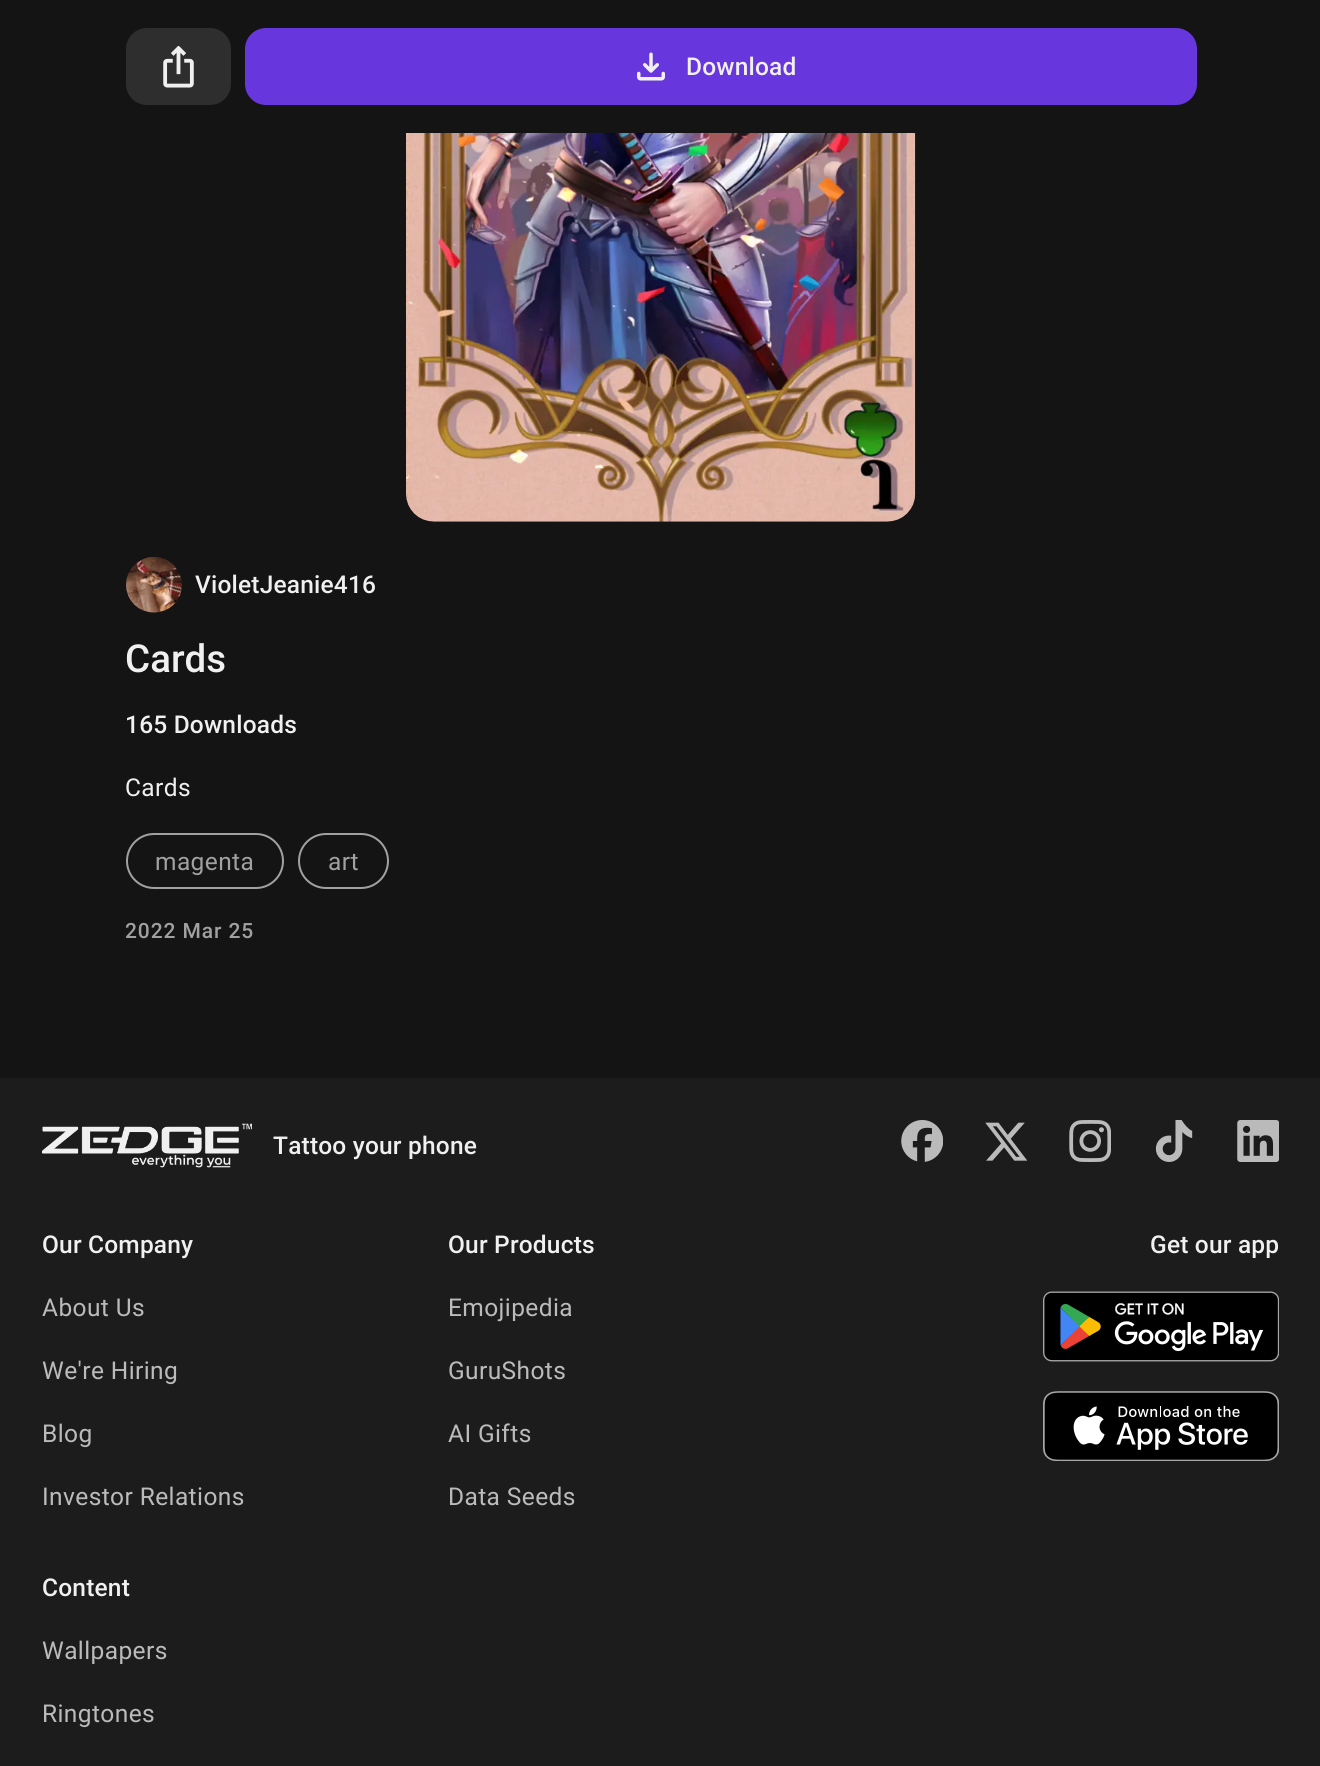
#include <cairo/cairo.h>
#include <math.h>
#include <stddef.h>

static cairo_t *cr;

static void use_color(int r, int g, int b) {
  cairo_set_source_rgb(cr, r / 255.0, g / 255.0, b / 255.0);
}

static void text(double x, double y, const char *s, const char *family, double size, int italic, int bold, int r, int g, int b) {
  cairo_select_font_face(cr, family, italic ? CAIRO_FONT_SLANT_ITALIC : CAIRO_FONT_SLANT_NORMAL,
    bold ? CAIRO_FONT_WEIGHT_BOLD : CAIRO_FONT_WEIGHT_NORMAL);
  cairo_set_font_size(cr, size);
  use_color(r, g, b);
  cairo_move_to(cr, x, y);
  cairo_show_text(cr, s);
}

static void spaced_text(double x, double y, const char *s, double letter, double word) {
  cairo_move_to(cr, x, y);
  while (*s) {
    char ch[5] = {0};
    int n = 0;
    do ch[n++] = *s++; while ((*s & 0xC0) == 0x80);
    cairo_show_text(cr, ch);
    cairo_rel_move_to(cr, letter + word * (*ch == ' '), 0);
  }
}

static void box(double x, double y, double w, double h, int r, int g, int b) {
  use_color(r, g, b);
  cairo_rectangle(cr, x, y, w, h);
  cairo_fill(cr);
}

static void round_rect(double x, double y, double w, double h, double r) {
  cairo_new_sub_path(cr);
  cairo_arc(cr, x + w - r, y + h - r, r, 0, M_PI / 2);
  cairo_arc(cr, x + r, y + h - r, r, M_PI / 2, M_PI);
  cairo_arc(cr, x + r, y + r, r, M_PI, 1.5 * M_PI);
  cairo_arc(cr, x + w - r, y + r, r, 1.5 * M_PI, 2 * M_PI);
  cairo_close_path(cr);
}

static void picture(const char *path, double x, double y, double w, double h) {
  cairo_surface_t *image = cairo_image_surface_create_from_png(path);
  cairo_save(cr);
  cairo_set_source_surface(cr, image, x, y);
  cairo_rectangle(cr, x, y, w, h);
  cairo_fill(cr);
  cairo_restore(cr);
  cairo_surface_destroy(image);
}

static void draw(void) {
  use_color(20, 20, 20);
  cairo_paint(cr);
  use_color(46, 46, 46);
  round_rect(126, 28, 105, 77, 21);
  cairo_fill(cr);
  picture("img_01.png", 163, 46, 31, 42);
  use_color(104, 54, 221);
  round_rect(245, 28, 952, 77, 21);
  cairo_fill(cr);
  picture("img_02.png", 637, 52, 28, 29);
  picture("img_03.png", 406, 133, 510, 389);
  picture("img_04.png", 126, 557, 56, 56);
  round_rect(127, 834, 156, 54, 27);
  use_color(161, 161, 161);
  cairo_stroke(cr);
  round_rect(299, 834, 89, 54, 27);
  cairo_stroke(cr);
  box(0, 1078, 1320, 688, 28, 28, 28);
  picture("img_05.png", 42, 1123, 210, 31);
  picture("img_06.png", 132, 1154, 99, 14);
  picture("img_07.png", 901, 1120, 42, 42);
  picture("img_08.png", 985, 1122, 42, 39);
  picture("img_09.png", 1069, 1120, 42, 42);
  picture("img_10.png", 1155, 1120, 38, 42);
  picture("img_11.png", 1237, 1120, 42, 42);
  picture("img_12.png", 1043, 1291, 236, 71);
  picture("img_13.png", 1043, 1391, 236, 70);
  cairo_select_font_face(cr, "Roboto Medium", CAIRO_FONT_SLANT_NORMAL, CAIRO_FONT_WEIGHT_NORMAL);
  cairo_set_font_size(cr, 24.5);
  use_color(240, 240, 240);
  spaced_text(686, 75, "Download", 0.2, 0);
  spaced_text(195, 593, "VioletJeanie416", 0.2, 0);
  text(125, 672, "Cards", "Roboto Medium", 38.5, 0, 0, 240, 240, 240);
  cairo_set_font_size(cr, 24.5);
  spaced_text(125, 733, "165 Downloads", 0.2, 0);
  cairo_select_font_face(cr, "Roboto", CAIRO_FONT_SLANT_NORMAL, CAIRO_FONT_WEIGHT_NORMAL);
  spaced_text(125, 796, "Cards", 0.4, 0);
  use_color(161, 161, 161);
  spaced_text(155, 870, "magenta", 0.4, 0);
  spaced_text(328, 870, "art", 0.4, 0);
  cairo_select_font_face(cr, "Roboto Medium", CAIRO_FONT_SLANT_NORMAL, CAIRO_FONT_WEIGHT_NORMAL);
  cairo_set_font_size(cr, 21);
  spaced_text(125, 938, "2022 Mar 25", 0.9, 0);
  cairo_set_font_size(cr, 24.5);
  use_color(240, 240, 240);
  spaced_text(273, 1154, "Tattoo your phone", 0.2, 0);
  spaced_text(42, 1253, "Our Company", 0.2, 0);
  cairo_select_font_face(cr, "Roboto", CAIRO_FONT_SLANT_NORMAL, CAIRO_FONT_WEIGHT_NORMAL);
  use_color(187, 187, 187);
  spaced_text(42, 1316, "About Us", 0.4, 0);
  spaced_text(42, 1379, "We're Hiring", 0.4, 0);
  spaced_text(42, 1442, "Blog", 0.4, 0);
  spaced_text(42, 1505, "Investor Relations", 0.4, 0);
  cairo_select_font_face(cr, "Roboto Medium", CAIRO_FONT_SLANT_NORMAL, CAIRO_FONT_WEIGHT_NORMAL);
  use_color(240, 240, 240);
  spaced_text(448, 1253, "Our Products", 0.2, 0);
  cairo_select_font_face(cr, "Roboto", CAIRO_FONT_SLANT_NORMAL, CAIRO_FONT_WEIGHT_NORMAL);
  use_color(187, 187, 187);
  spaced_text(448, 1316, "Emojipedia", 0.4, 0);
  spaced_text(448, 1379, "GuruShots", 0.4, 0);
  spaced_text(448, 1442, "AI Gifts", 0.4, 0);
  spaced_text(448, 1505, "Data Seeds", 0.4, 0);
  cairo_select_font_face(cr, "Roboto Medium", CAIRO_FONT_SLANT_NORMAL, CAIRO_FONT_WEIGHT_NORMAL);
  use_color(240, 240, 240);
  spaced_text(42, 1596, "Content", 0.2, 0);
  cairo_select_font_face(cr, "Roboto", CAIRO_FONT_SLANT_NORMAL, CAIRO_FONT_WEIGHT_NORMAL);
  use_color(187, 187, 187);
  spaced_text(42, 1659, "Wallpapers", 0.4, 0);
  spaced_text(42, 1722, "Ringtones", 0.4, 0);
  cairo_select_font_face(cr, "Roboto Medium", CAIRO_FONT_SLANT_NORMAL, CAIRO_FONT_WEIGHT_NORMAL);
  use_color(240, 240, 240);
  spaced_text(1150, 1253, "Get our app", 0.2, 0);
}

int main(void) {
  cairo_surface_t *surface = cairo_image_surface_create(CAIRO_FORMAT_RGB24, 1320, 1766);
  cr = cairo_create(surface);
  cairo_font_options_t *options = cairo_font_options_create();
  cairo_font_options_set_hint_metrics(options, CAIRO_HINT_METRICS_OFF);
  cairo_font_options_set_hint_style(options, CAIRO_HINT_STYLE_NONE);
  cairo_set_font_options(cr, options);
  cairo_set_miter_limit(cr, 4);
  draw();
  cairo_surface_write_to_png(surface, "out.png");
  cairo_font_options_destroy(options);
  cairo_destroy(cr);
  cairo_surface_destroy(surface);
  return 0;
}
